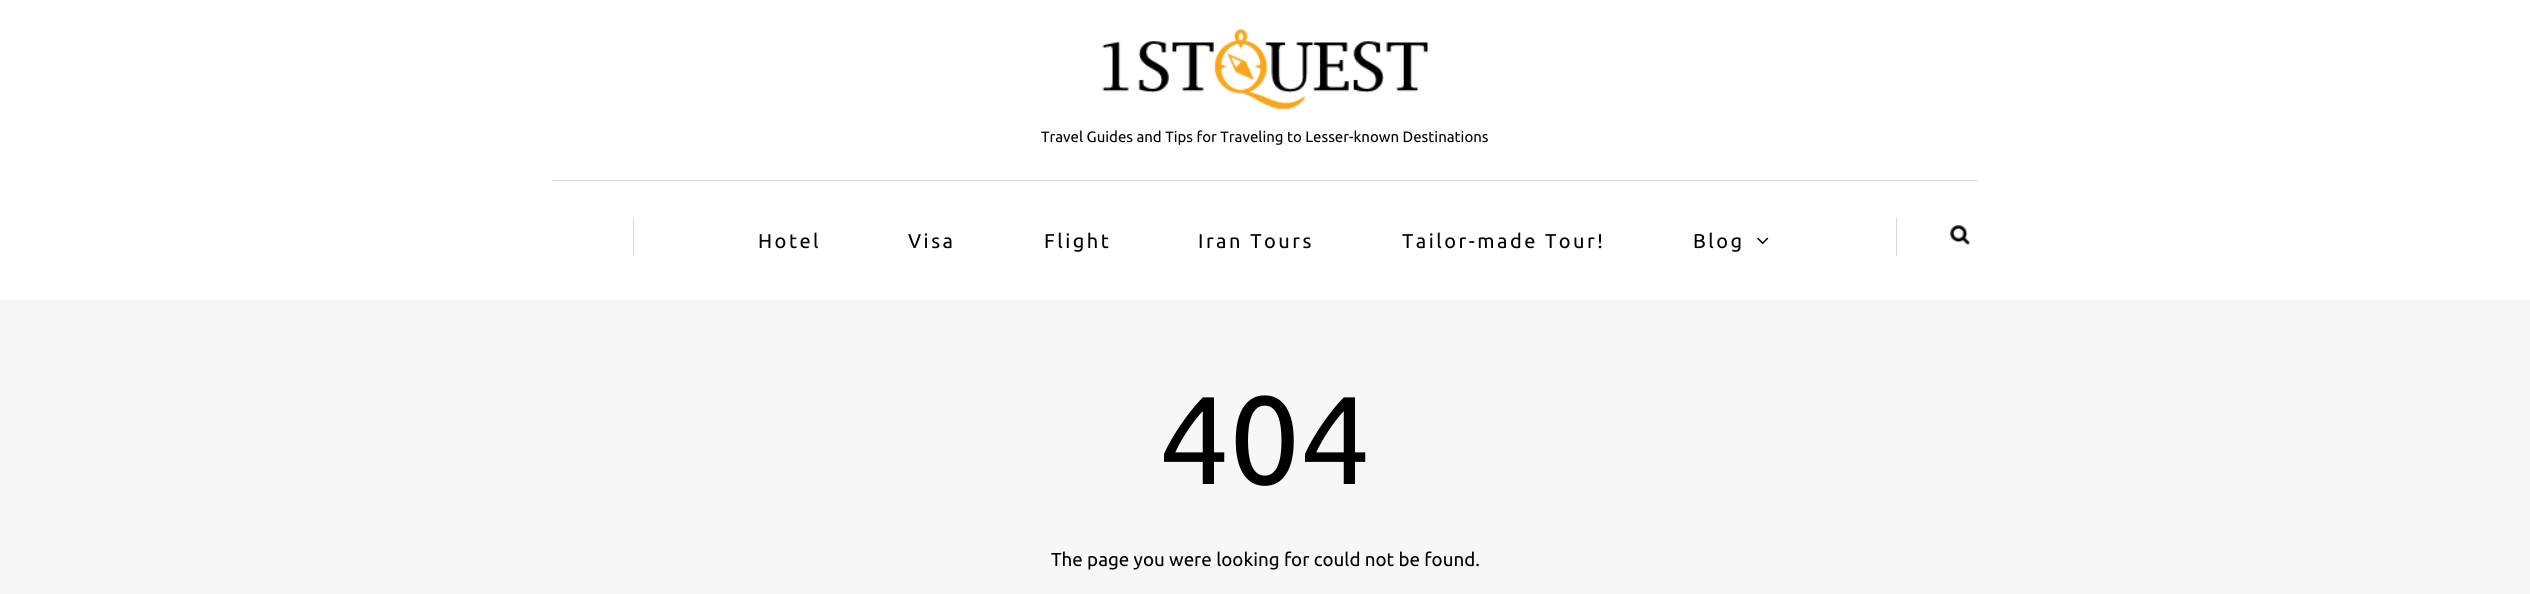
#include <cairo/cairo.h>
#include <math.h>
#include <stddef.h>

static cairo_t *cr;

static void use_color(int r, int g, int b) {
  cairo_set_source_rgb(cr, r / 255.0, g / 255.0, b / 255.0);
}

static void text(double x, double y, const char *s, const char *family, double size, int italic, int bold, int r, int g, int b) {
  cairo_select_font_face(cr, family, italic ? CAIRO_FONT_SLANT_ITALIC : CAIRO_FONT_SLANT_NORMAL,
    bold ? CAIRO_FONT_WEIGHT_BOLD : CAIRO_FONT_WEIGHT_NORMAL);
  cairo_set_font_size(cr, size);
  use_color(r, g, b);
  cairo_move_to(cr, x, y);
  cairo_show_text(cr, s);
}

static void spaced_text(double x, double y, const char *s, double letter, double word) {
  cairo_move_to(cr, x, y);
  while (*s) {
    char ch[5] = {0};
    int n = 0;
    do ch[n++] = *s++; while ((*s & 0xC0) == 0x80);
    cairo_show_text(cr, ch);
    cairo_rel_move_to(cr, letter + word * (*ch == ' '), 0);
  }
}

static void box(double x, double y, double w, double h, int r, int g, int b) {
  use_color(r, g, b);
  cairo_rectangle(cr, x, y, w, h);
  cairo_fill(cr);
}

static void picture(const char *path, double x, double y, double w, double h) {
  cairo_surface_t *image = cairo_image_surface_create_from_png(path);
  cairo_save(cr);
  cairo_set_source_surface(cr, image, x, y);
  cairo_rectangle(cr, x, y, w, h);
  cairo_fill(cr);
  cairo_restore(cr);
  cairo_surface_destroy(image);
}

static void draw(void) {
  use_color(247, 247, 247);
  cairo_paint(cr);
  box(0, 0, 2530, 300, 255, 255, 255);
  picture("img_01.png", 1102, 28, 326, 81);
  box(633, 218, 1, 38, 217, 217, 217);
  box(553, 180, 1425, 1, 217, 217, 217);
  picture("img_02.png", 1757, 237, 12, 8);
  box(1896, 218, 1, 38, 217, 217, 217);
  picture("img_03.png", 1950, 225, 20, 20);
  text(1041, 142, "Travel Guides and Tips for Traveling to Lesser-known Destinations", "Ubuntu", 15, 0, 0, 0, 0, 0);
  cairo_set_font_size(cr, 20);
  spaced_text(758, 248, "Hotel", 2.5, 0);
  spaced_text(908, 248, "Visa", 2.5, 0);
  spaced_text(1044, 248, "Flight", 2.5, 0);
  spaced_text(1198, 248, "Iran Tours", 2.5, 0);
  spaced_text(1402, 248, "Tailor-made Tour!", 2.5, 0);
  spaced_text(1693, 248, "Blog", 2.5, 0);
  text(1159, 484, "404", "Ubuntu", 125, 0, 0, 0, 0, 0);
  text(1051, 566, "The page you were looking for could not be found.", "Ubuntu", 18.75, 0, 0, 0, 0, 0);
}

int main(void) {
  cairo_surface_t *surface = cairo_image_surface_create(CAIRO_FORMAT_RGB24, 2530, 594);
  cr = cairo_create(surface);
  cairo_font_options_t *options = cairo_font_options_create();
  cairo_font_options_set_hint_metrics(options, CAIRO_HINT_METRICS_OFF);
  cairo_font_options_set_hint_style(options, CAIRO_HINT_STYLE_NONE);
  cairo_set_font_options(cr, options);
  cairo_set_miter_limit(cr, 4);
  draw();
  cairo_surface_write_to_png(surface, "out.png");
  cairo_font_options_destroy(options);
  cairo_destroy(cr);
  cairo_surface_destroy(surface);
  return 0;
}
